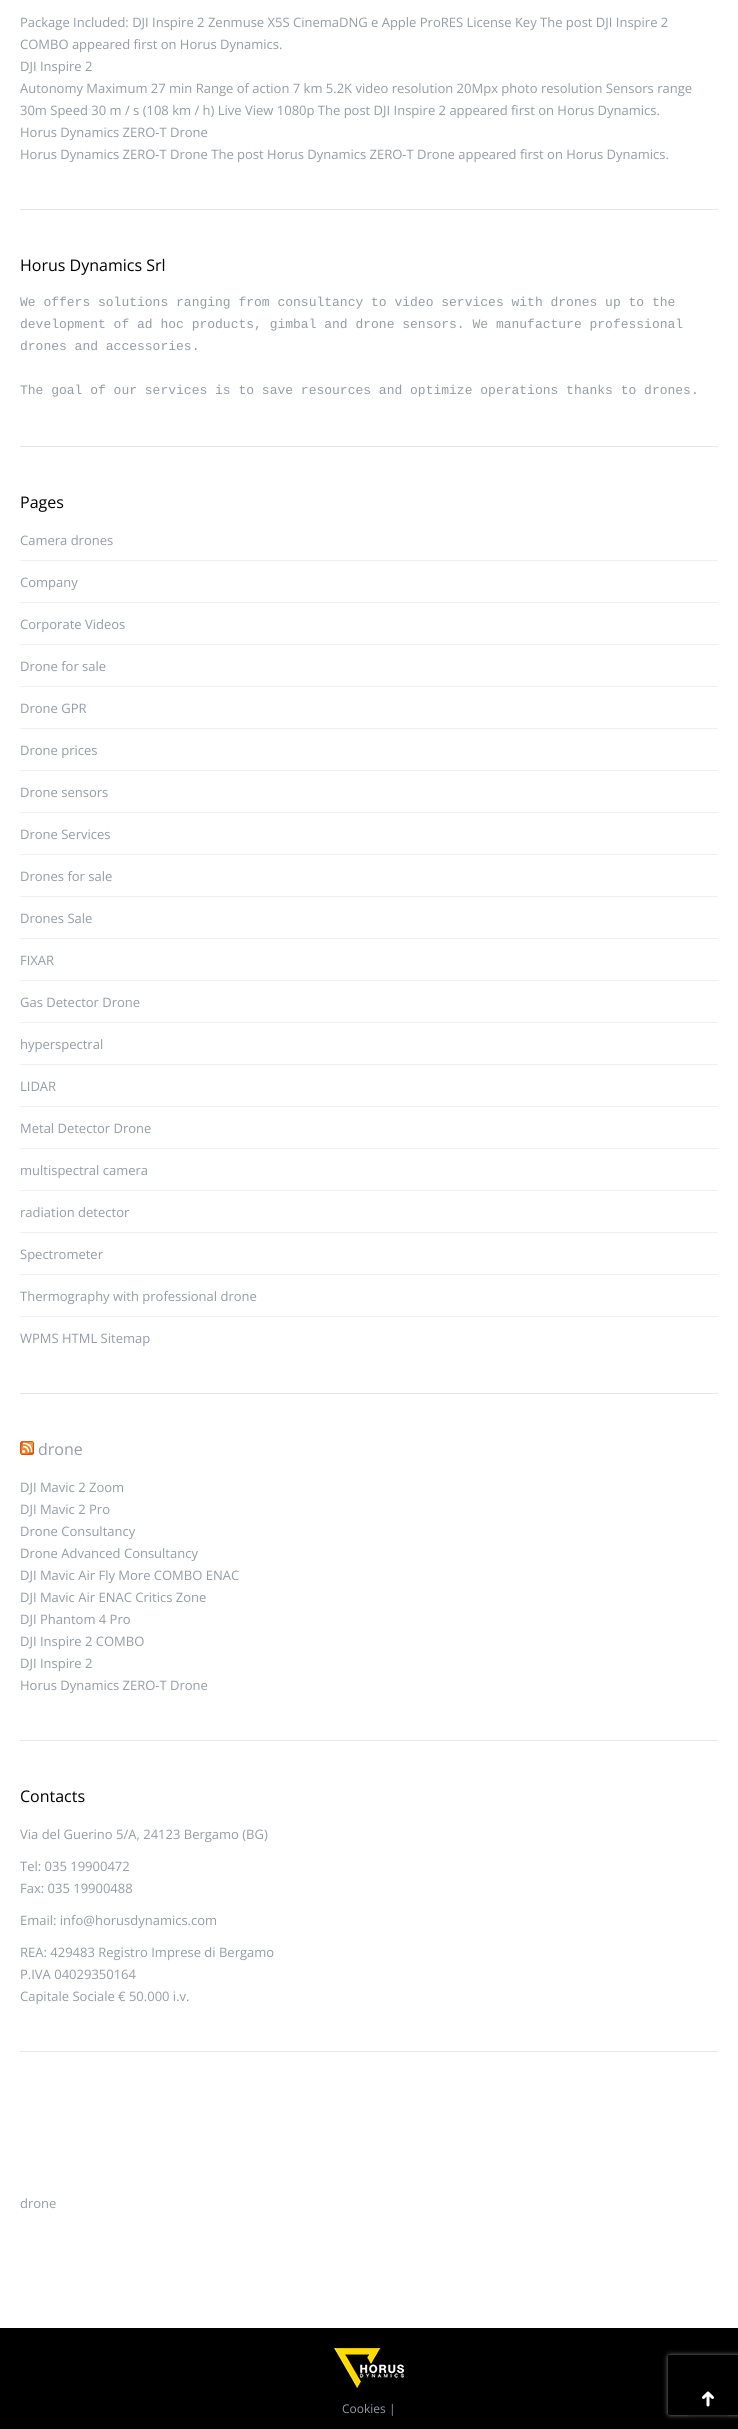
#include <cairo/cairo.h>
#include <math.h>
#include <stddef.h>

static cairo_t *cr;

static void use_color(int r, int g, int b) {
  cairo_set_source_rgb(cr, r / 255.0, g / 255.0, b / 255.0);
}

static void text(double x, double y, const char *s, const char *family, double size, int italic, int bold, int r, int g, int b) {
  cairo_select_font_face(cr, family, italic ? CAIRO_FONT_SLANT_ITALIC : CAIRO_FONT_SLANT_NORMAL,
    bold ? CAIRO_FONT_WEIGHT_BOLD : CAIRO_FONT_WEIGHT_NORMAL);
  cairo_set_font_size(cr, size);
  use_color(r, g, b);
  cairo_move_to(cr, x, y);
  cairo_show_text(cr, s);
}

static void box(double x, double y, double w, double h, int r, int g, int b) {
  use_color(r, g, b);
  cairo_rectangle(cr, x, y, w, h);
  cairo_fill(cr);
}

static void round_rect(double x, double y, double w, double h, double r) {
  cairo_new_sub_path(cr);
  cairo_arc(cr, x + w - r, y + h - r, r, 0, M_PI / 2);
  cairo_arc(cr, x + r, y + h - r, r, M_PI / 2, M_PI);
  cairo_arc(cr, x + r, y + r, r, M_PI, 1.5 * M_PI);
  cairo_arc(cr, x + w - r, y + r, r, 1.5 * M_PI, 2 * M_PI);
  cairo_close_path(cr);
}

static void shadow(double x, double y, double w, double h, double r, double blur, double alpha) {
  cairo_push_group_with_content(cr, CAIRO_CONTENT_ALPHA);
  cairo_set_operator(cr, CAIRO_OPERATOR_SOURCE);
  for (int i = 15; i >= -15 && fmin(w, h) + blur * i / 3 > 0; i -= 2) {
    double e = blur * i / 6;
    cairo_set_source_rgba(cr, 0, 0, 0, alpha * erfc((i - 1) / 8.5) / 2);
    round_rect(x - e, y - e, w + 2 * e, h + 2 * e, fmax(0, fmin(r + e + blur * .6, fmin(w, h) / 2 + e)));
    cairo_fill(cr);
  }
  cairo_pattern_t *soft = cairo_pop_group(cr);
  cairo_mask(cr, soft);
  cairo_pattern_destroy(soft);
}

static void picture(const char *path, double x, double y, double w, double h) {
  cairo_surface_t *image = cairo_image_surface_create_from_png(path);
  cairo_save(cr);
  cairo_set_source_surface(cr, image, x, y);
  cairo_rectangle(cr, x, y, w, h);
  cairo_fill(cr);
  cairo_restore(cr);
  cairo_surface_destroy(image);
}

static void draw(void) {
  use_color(255, 255, 255);
  cairo_paint(cr);
  box(20, 209, 698, 1, 231, 231, 231);
  box(20, 446, 698, 1, 231, 231, 231);
  box(20, 560, 698, 1, 239, 240, 242);
  box(20, 602, 698, 1, 239, 240, 242);
  box(20, 644, 698, 1, 239, 240, 242);
  box(20, 686, 698, 1, 239, 240, 242);
  box(20, 728, 698, 1, 239, 240, 242);
  box(20, 770, 698, 1, 239, 240, 242);
  box(20, 812, 698, 1, 239, 240, 242);
  box(20, 854, 698, 1, 239, 240, 242);
  box(20, 896, 698, 1, 239, 240, 242);
  box(20, 938, 698, 1, 239, 240, 242);
  box(20, 980, 698, 1, 239, 240, 242);
  box(20, 1022, 698, 1, 239, 240, 242);
  box(20, 1064, 698, 1, 239, 240, 242);
  box(20, 1106, 698, 1, 239, 240, 242);
  box(20, 1148, 698, 1, 239, 240, 242);
  box(20, 1190, 698, 1, 239, 240, 242);
  box(20, 1232, 698, 1, 239, 240, 242);
  box(20, 1274, 698, 1, 239, 240, 242);
  box(20, 1316, 698, 1, 239, 240, 242);
  box(20, 1393, 698, 1, 231, 231, 231);
  picture("img_01.png", 20, 1441, 14, 14);
  box(20, 1740, 698, 1, 231, 231, 231);
  box(20, 2051, 698, 1, 231, 231, 231);
  box(0, 2328, 738, 101, 0, 0, 0);
  picture("img_02.png", 334, 2348, 70, 40);
  cairo_save(cr);
  cairo_set_fill_rule(cr, CAIRO_FILL_RULE_EVEN_ODD);
  cairo_new_path(cr);
  cairo_move_to(cr, 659, 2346);
  cairo_line_to(cr, 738, 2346);
  cairo_line_to(cr, 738, 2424);
  cairo_line_to(cr, 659, 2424);
  cairo_close_path(cr);
  cairo_move_to(cr, 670, 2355);
  cairo_line_to(cr, 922, 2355);
  cairo_curve_to(cr, 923, 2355, 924, 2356, 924, 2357);
  cairo_line_to(cr, 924, 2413);
  cairo_curve_to(cr, 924, 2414, 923, 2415, 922, 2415);
  cairo_line_to(cr, 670, 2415);
  cairo_curve_to(cr, 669, 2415, 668, 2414, 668, 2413);
  cairo_line_to(cr, 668, 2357);
  cairo_curve_to(cr, 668, 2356, 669, 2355, 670, 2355);
  cairo_close_path(cr);
  cairo_clip(cr);
  use_color(128, 128, 128);
  shadow(668, 2355, 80, 60, 2, 2.5, 1);
  cairo_restore(cr);
  cairo_set_source_rgba(cr, 0, 0, 0, 0.2);
  round_rect(688, 2379, 40, 40, 4);
  cairo_fill(cr);
  picture("img_03.png", 702, 2391, 12, 16);
  text(20, 27, "Package Included: DJI Inspire 2 Zenmuse X5S CinemaDNG e Apple ProRES License Key The post DJI Inspire 2", "Open Sans", 13, 0, 0, 149, 156, 166);
  text(20, 49, "COMBO appeared first on Horus Dynamics.", "Open Sans", 13, 0, 0, 149, 156, 166);
  text(20, 71, "DJI Inspire 2", "Open Sans", 13, 0, 0, 149, 156, 166);
  text(20, 93, "Autonomy Maximum 27 min Range of action 7 km 5.2K video resolution 20Mpx photo resolution Sensors range", "Open Sans", 13, 0, 0, 149, 156, 166);
  text(20, 115, "30m Speed 30 m / s (108 km / h) Live View 1080p The post DJI Inspire 2 appeared first on Horus Dynamics.", "Open Sans", 13, 0, 0, 149, 156, 166);
  text(20, 137, "Horus Dynamics ZERO-T Drone", "Open Sans", 13, 0, 0, 149, 156, 166);
  text(20, 159, "Horus Dynamics ZERO-T Drone The post Horus Dynamics ZERO-T Drone appeared first on Horus Dynamics.", "Open Sans", 13, 0, 0, 149, 156, 166);
  text(20, 271, "Horus Dynamics Srl", "Open Sans", 16, 0, 0, 0, 0, 0);
  text(20, 306, "We offers solutions ranging from consultancy to video services with drones up to the", "Liberation Mono", 13, 0, 0, 149, 156, 166);
  text(20, 328, "development of ad hoc products, gimbal and drone sensors. We manufacture professional", "Liberation Mono", 13, 0, 0, 149, 156, 166);
  text(20, 350, "drones and accessories.", "Liberation Mono", 13, 0, 0, 149, 156, 166);
  text(20, 394, "The goal of our services is to save resources and optimize operations thanks to drones.", "Liberation Mono", 13, 0, 0, 149, 156, 166);
  text(20, 508, "Pages", "Open Sans", 16, 0, 0, 0, 0, 0);
  text(20, 545, "Camera drones", "Open Sans", 13, 0, 0, 149, 156, 166);
  text(20, 587, "Company", "Open Sans", 13, 0, 0, 149, 156, 166);
  text(20, 629, "Corporate Videos", "Open Sans", 13, 0, 0, 149, 156, 166);
  text(20, 671, "Drone for sale", "Open Sans", 13, 0, 0, 149, 156, 166);
  text(20, 713, "Drone GPR", "Open Sans", 13, 0, 0, 149, 156, 166);
  text(20, 755, "Drone prices", "Open Sans", 13, 0, 0, 149, 156, 166);
  text(20, 797, "Drone sensors", "Open Sans", 13, 0, 0, 149, 156, 166);
  text(20, 839, "Drone Services", "Open Sans", 13, 0, 0, 149, 156, 166);
  text(20, 881, "Drones for sale", "Open Sans", 13, 0, 0, 149, 156, 166);
  text(20, 923, "Drones Sale", "Open Sans", 13, 0, 0, 149, 156, 166);
  text(20, 965, "FIXAR", "Open Sans", 13, 0, 0, 149, 156, 166);
  text(20, 1007, "Gas Detector Drone", "Open Sans", 13, 0, 0, 149, 156, 166);
  text(20, 1049, "hyperspectral", "Open Sans", 13, 0, 0, 149, 156, 166);
  text(20, 1091, "LIDAR", "Open Sans", 13, 0, 0, 149, 156, 166);
  text(20, 1133, "Metal Detector Drone", "Open Sans", 13, 0, 0, 149, 156, 166);
  text(20, 1175, "multispectral camera", "Open Sans", 13, 0, 0, 149, 156, 166);
  text(20, 1217, "radiation detector", "Open Sans", 13, 0, 0, 149, 156, 166);
  text(20, 1259, "Spectrometer", "Open Sans", 13, 0, 0, 149, 156, 166);
  text(20, 1301, "Thermography with professional drone", "Open Sans", 13, 0, 0, 149, 156, 166);
  text(20, 1343, "WPMS HTML Sitemap", "Open Sans", 13, 0, 0, 149, 156, 166);
  text(38, 1455, "drone", "Open Sans", 16, 0, 0, 149, 156, 166);
  text(20, 1492, "DJI Mavic 2 Zoom", "Open Sans", 13, 0, 0, 149, 156, 166);
  text(20, 1514, "DJI Mavic 2 Pro", "Open Sans", 13, 0, 0, 149, 156, 166);
  text(20, 1536, "Drone Consultancy", "Open Sans", 13, 0, 0, 149, 156, 166);
  text(20, 1558, "Drone Advanced Consultancy", "Open Sans", 13, 0, 0, 149, 156, 166);
  text(20, 1580, "DJI Mavic Air Fly More COMBO ENAC", "Open Sans", 13, 0, 0, 149, 156, 166);
  text(20, 1602, "DJI Mavic Air ENAC Critics Zone", "Open Sans", 13, 0, 0, 149, 156, 166);
  text(20, 1624, "DJI Phantom 4 Pro", "Open Sans", 13, 0, 0, 149, 156, 166);
  text(20, 1646, "DJI Inspire 2 COMBO", "Open Sans", 13, 0, 0, 149, 156, 166);
  text(20, 1668, "DJI Inspire 2", "Open Sans", 13, 0, 0, 149, 156, 166);
  text(20, 1690, "Horus Dynamics ZERO-T Drone", "Open Sans", 13, 0, 0, 149, 156, 166);
  text(20, 1802, "Contacts", "Open Sans", 16, 0, 0, 0, 0, 0);
  text(20, 1839, "Via del Guerino 5/A, 24123 Bergamo (BG)", "Open Sans", 13, 0, 0, 149, 156, 166);
  text(20, 1871, "Tel: 035 19900472", "Open Sans", 13, 0, 0, 149, 156, 166);
  text(20, 1893, "Fax: 035 19900488", "Open Sans", 13, 0, 0, 149, 156, 166);
  text(20, 1925, "Email: info@horusdynamics.com", "Open Sans", 13, 0, 0, 149, 156, 166);
  text(20, 1957, "REA: 429483 Registro Imprese di Bergamo", "Open Sans", 13, 0, 0, 149, 156, 166);
  text(20, 1979, "P.IVA 04029350164", "Open Sans", 13, 0, 0, 149, 156, 166);
  text(20, 2001, "Capitale Sociale € 50.000 i.v.", "Open Sans", 13, 0, 0, 149, 156, 166);
  text(20, 2208, "drone", "Open Sans", 13, 0, 0, 149, 156, 166);
  text(342, 2413, "Cookies |", "Open Sans", 12, 0, 0, 149, 156, 166);
}

int main(void) {
  cairo_surface_t *surface = cairo_image_surface_create(CAIRO_FORMAT_RGB24, 738, 2429);
  cr = cairo_create(surface);
  cairo_font_options_t *options = cairo_font_options_create();
  cairo_font_options_set_hint_metrics(options, CAIRO_HINT_METRICS_OFF);
  cairo_font_options_set_hint_style(options, CAIRO_HINT_STYLE_NONE);
  cairo_set_font_options(cr, options);
  cairo_set_miter_limit(cr, 4);
  draw();
  cairo_surface_write_to_png(surface, "out.png");
  cairo_font_options_destroy(options);
  cairo_destroy(cr);
  cairo_surface_destroy(surface);
  return 0;
}
